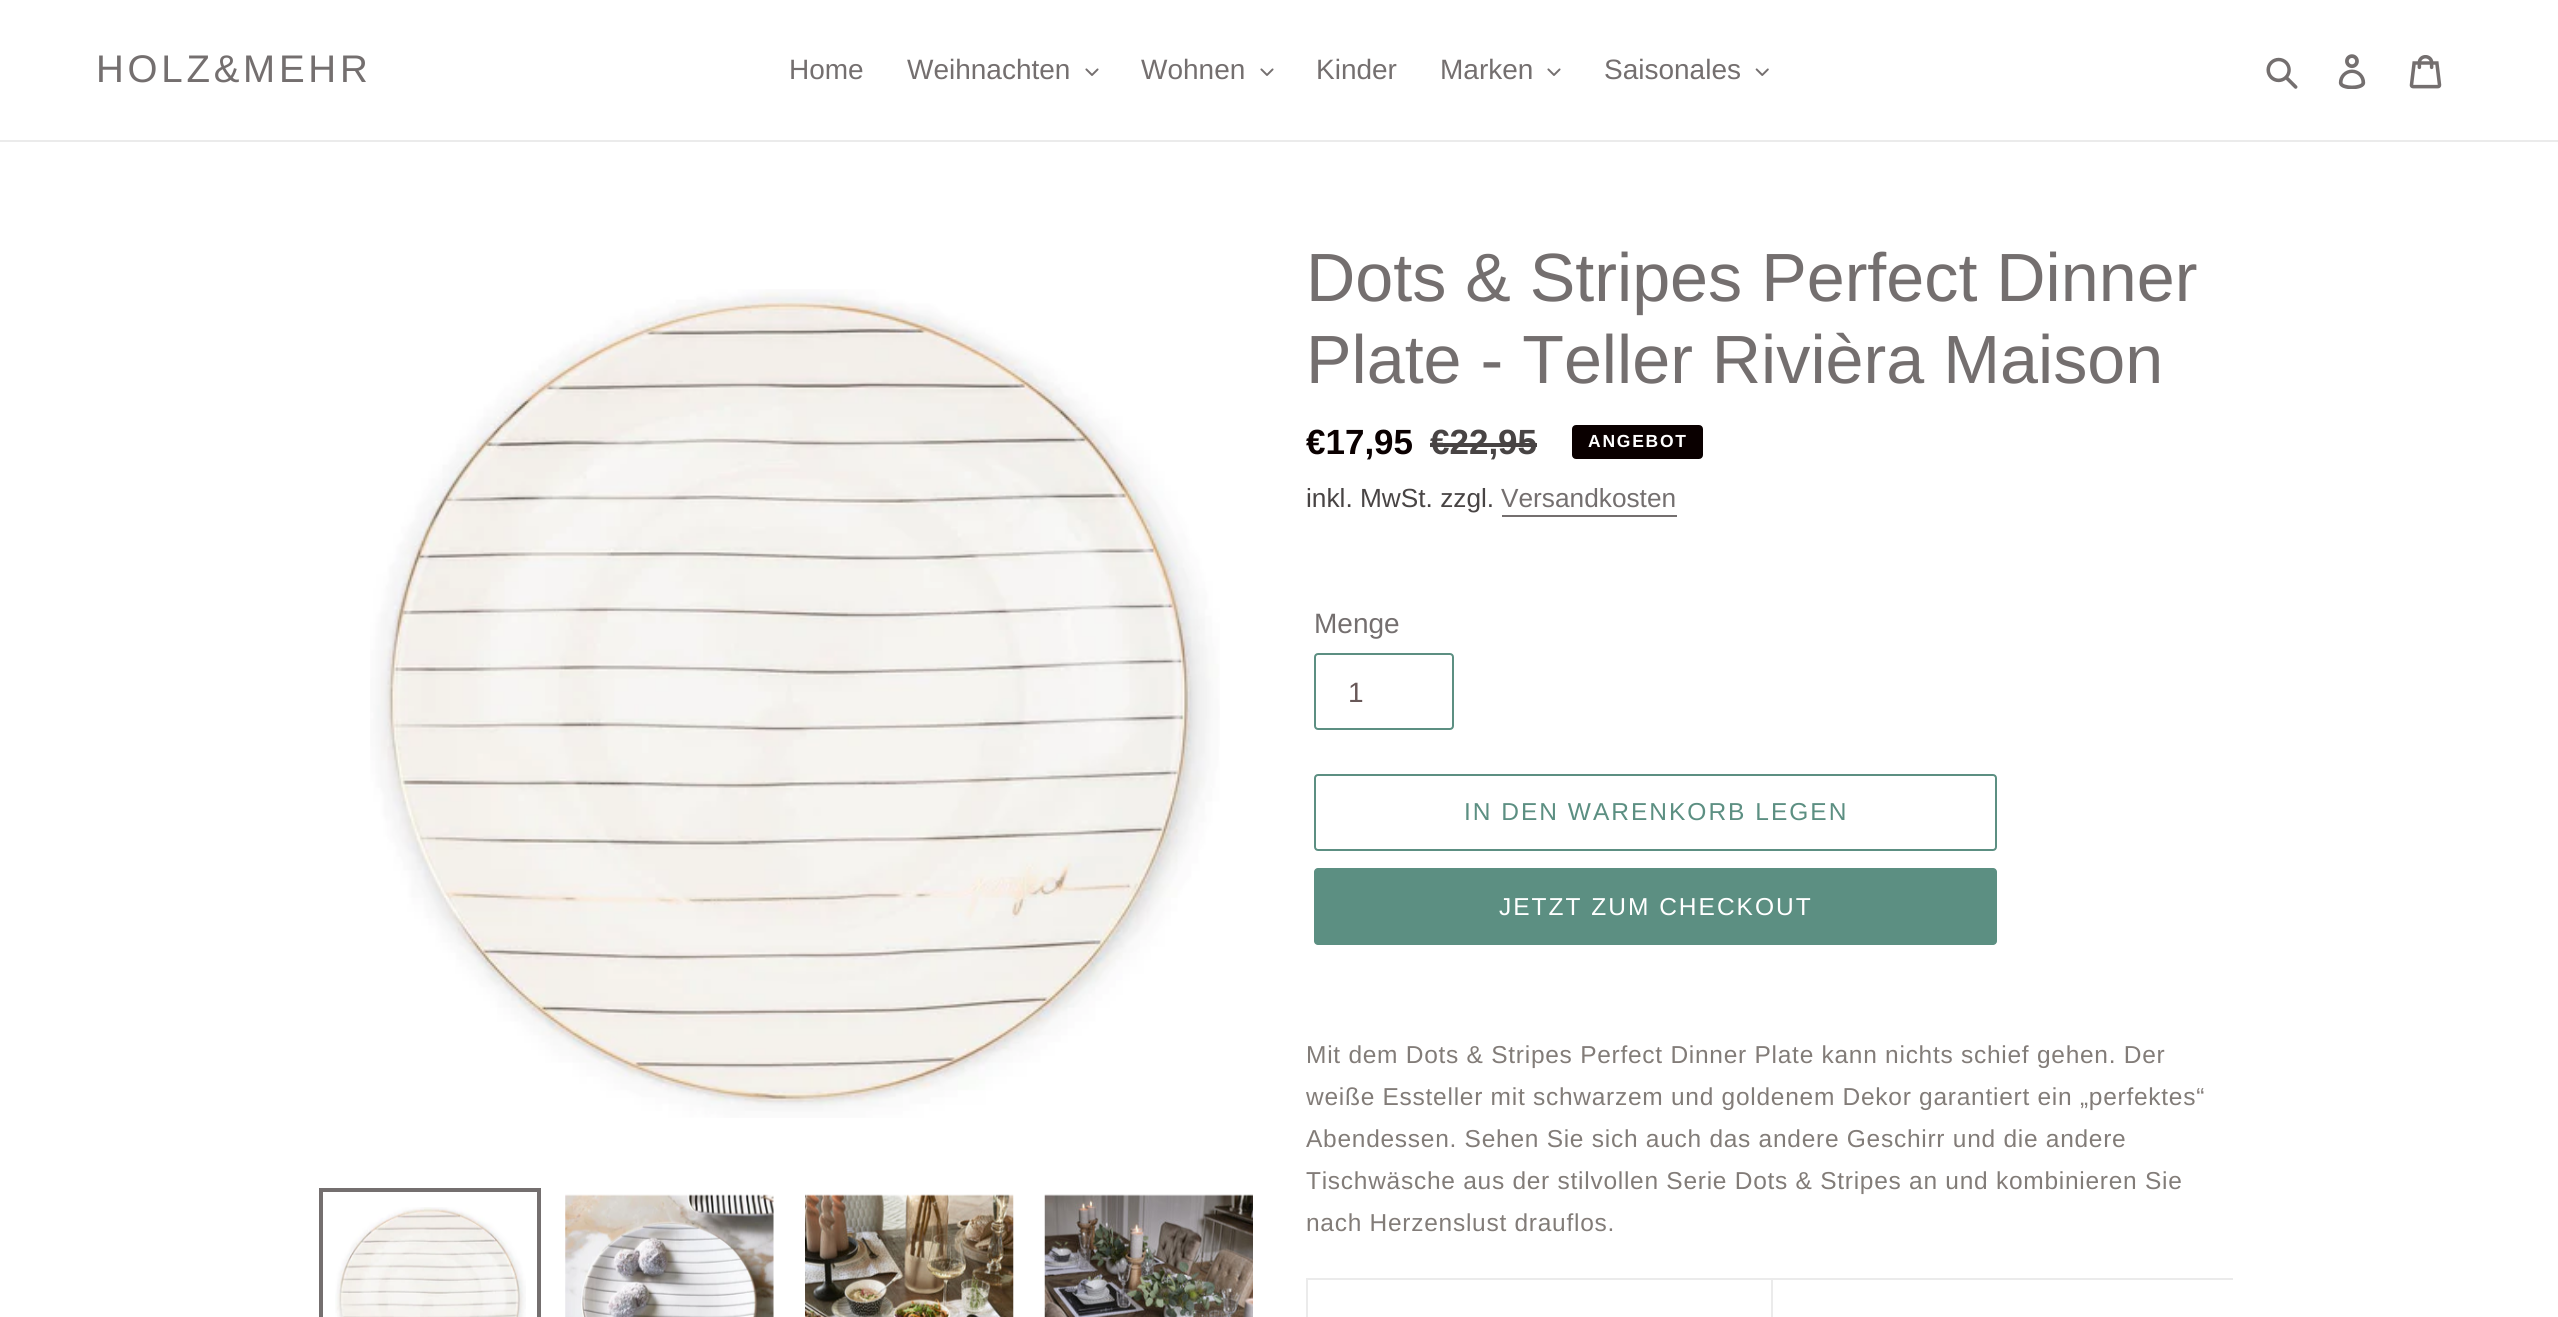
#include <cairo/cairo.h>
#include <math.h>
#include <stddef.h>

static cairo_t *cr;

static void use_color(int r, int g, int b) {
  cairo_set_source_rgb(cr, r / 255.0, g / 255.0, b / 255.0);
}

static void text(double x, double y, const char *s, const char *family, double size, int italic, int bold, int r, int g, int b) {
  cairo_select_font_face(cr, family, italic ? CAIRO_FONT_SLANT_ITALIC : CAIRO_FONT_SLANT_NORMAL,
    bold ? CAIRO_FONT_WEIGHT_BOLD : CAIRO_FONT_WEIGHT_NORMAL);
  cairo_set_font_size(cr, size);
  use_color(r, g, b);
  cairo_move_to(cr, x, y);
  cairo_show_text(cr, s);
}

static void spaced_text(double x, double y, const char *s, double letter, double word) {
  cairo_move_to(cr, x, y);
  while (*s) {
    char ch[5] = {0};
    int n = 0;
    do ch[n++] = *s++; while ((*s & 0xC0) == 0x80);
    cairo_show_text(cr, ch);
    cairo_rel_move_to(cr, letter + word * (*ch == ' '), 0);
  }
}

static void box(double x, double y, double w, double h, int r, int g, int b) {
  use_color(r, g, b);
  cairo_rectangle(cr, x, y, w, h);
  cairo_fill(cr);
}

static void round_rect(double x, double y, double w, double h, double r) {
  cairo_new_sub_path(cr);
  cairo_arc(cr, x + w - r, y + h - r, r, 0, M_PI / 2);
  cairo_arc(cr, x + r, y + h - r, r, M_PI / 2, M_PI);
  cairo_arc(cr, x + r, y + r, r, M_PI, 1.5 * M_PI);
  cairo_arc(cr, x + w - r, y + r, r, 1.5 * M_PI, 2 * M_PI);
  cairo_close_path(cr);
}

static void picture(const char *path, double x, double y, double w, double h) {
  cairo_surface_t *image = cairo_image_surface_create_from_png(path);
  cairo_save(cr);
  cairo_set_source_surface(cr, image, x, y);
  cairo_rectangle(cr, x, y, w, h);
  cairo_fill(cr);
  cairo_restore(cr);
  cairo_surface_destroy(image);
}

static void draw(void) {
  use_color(255, 255, 255);
  cairo_paint(cr);
  box(0, 140, 2558, 2, 235, 235, 235);
  picture("img_01.png", 1085, 68, 14, 8);
  picture("img_01.png", 1260, 68, 14, 8);
  picture("img_01.png", 1547, 68, 14, 8);
  picture("img_02.png", 1755, 68, 14, 8);
  picture("img_03.png", 2266, 57, 32, 32);
  picture("img_04.png", 2338, 54, 28, 35);
  picture("img_05.png", 2409, 55, 33, 34);
  picture("img_06.png", 370, 289, 850, 829);
  cairo_rectangle(cr, 321, 1190, 218, 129);
  use_color(116, 111, 111);
  cairo_set_line_width(cr, 4);
  cairo_stroke(cr);
  picture("img_07.png", 335, 1207, 191, 110);
  picture("img_08.png", 565, 1194, 209, 123);
  picture("img_09.png", 805, 1194, 209, 123);
  picture("img_10.png", 1044, 1194, 209, 123);
  box(1430, 443, 107, 4, 72, 68, 68);
  use_color(10, 0, 0);
  round_rect(1573, 426, 129, 32, 3);
  cairo_fill_preserve(cr);
  cairo_set_line_width(cr, 2);
  cairo_stroke(cr);
  box(1502, 515, 175, 2, 116, 111, 111);
  round_rect(1315, 654, 138, 75, 3);
  use_color(92, 143, 130);
  cairo_stroke(cr);
  round_rect(1315, 775, 681, 75, 3);
  cairo_stroke(cr);
  round_rect(1314, 868, 683, 77, 4);
  cairo_fill(cr);
  box(1771, 1278, 462, 2, 235, 235, 235);
  box(1771, 1278, 2, 39, 235, 235, 235);
  box(1306, 1278, 467, 2, 235, 235, 235);
  box(1306, 1278, 2, 39, 235, 235, 235);
  cairo_select_font_face(cr, "Arimo", CAIRO_FONT_SLANT_NORMAL, CAIRO_FONT_WEIGHT_NORMAL);
  cairo_set_font_size(cr, 38.5);
  use_color(116, 111, 111);
  spaced_text(96, 82, "HOLZ&MEHR", 3.75, 0);
  text(789, 79, "Home", "Liberation Sans", 28, 0, 0, 116, 111, 111);
  text(907, 79, "Weihnachten", "Liberation Sans", 28, 0, 0, 116, 111, 111);
  text(1141, 79, "Wohnen", "Liberation Sans", 28, 0, 0, 116, 111, 111);
  text(1316, 79, "Kinder", "Liberation Sans", 28, 0, 0, 116, 111, 111);
  text(1440, 79, "Marken", "Liberation Sans", 28, 0, 0, 116, 111, 111);
  text(1604, 79, "Saisonales", "Liberation Sans", 28, 0, 0, 116, 111, 111);
  text(1306, 301, "Dots & Stripes Perfect Dinner", "Arimo", 68.25, 0, 0, 116, 111, 111);
  text(1306, 383, "Plate - Teller Rivièra Maison", "Arimo", 68.25, 0, 0, 116, 111, 111);
  text(1306, 454, "€17,95", "Liberation Sans", 35, 0, 1, 10, 0, 0);
  text(1430, 454, "€22,95", "Liberation Sans", 35, 0, 1, 72, 68, 68);
  cairo_set_font_size(cr, 17.5);
  use_color(255, 255, 255);
  spaced_text(1588, 447, "ANGEBOT", 1.75, 0);
  text(1306, 507, "inkl. MwSt. zzgl.", "Liberation Sans", 26.25, 0, 0, 72, 68, 68);
  text(1501, 507, "Versandkosten", "Liberation Sans", 26.25, 0, 0, 116, 111, 111);
  text(1314, 633, "Menge", "Liberation Sans", 28, 0, 0, 116, 111, 111);
  text(1348, 702, "1", "Liberation Sans", 28, 0, 0, 104, 88, 88);
  cairo_select_font_face(cr, "Arimo", CAIRO_FONT_SLANT_NORMAL, CAIRO_FONT_WEIGHT_NORMAL);
  cairo_set_font_size(cr, 24.5);
  use_color(92, 143, 130);
  spaced_text(1464, 820, "IN DEN WARENKORB LEGEN", 2, 0);
  use_color(255, 255, 255);
  spaced_text(1499, 915, "JETZT ZUM CHECKOUT", 2, 0);
  cairo_select_font_face(cr, "Liberation Sans", CAIRO_FONT_SLANT_NORMAL, CAIRO_FONT_WEIGHT_NORMAL);
  use_color(130, 124, 120);
  spaced_text(1306, 1063, "Mit dem Dots & Stripes Perfect Dinner Plate kann nichts schief gehen. Der", 0.73, 0);
  spaced_text(1306, 1105, "weiße Essteller mit schwarzem und goldenem Dekor garantiert ein „perfektes“", 0.73, 0);
  spaced_text(1306, 1147, "Abendessen. Sehen Sie sich auch das andere Geschirr und die andere", 0.73, 0);
  spaced_text(1306, 1189, "Tischwäsche aus der stilvollen Serie Dots & Stripes an und kombinieren Sie", 0.73, 0);
  spaced_text(1306, 1231, "nach Herzenslust drauflos.", 0.73, 0);
}

int main(void) {
  cairo_surface_t *surface = cairo_image_surface_create(CAIRO_FORMAT_RGB24, 2558, 1317);
  cr = cairo_create(surface);
  cairo_font_options_t *options = cairo_font_options_create();
  cairo_font_options_set_hint_metrics(options, CAIRO_HINT_METRICS_OFF);
  cairo_font_options_set_hint_style(options, CAIRO_HINT_STYLE_NONE);
  cairo_set_font_options(cr, options);
  cairo_set_miter_limit(cr, 4);
  draw();
  cairo_surface_write_to_png(surface, "out.png");
  cairo_font_options_destroy(options);
  cairo_destroy(cr);
  cairo_surface_destroy(surface);
  return 0;
}
